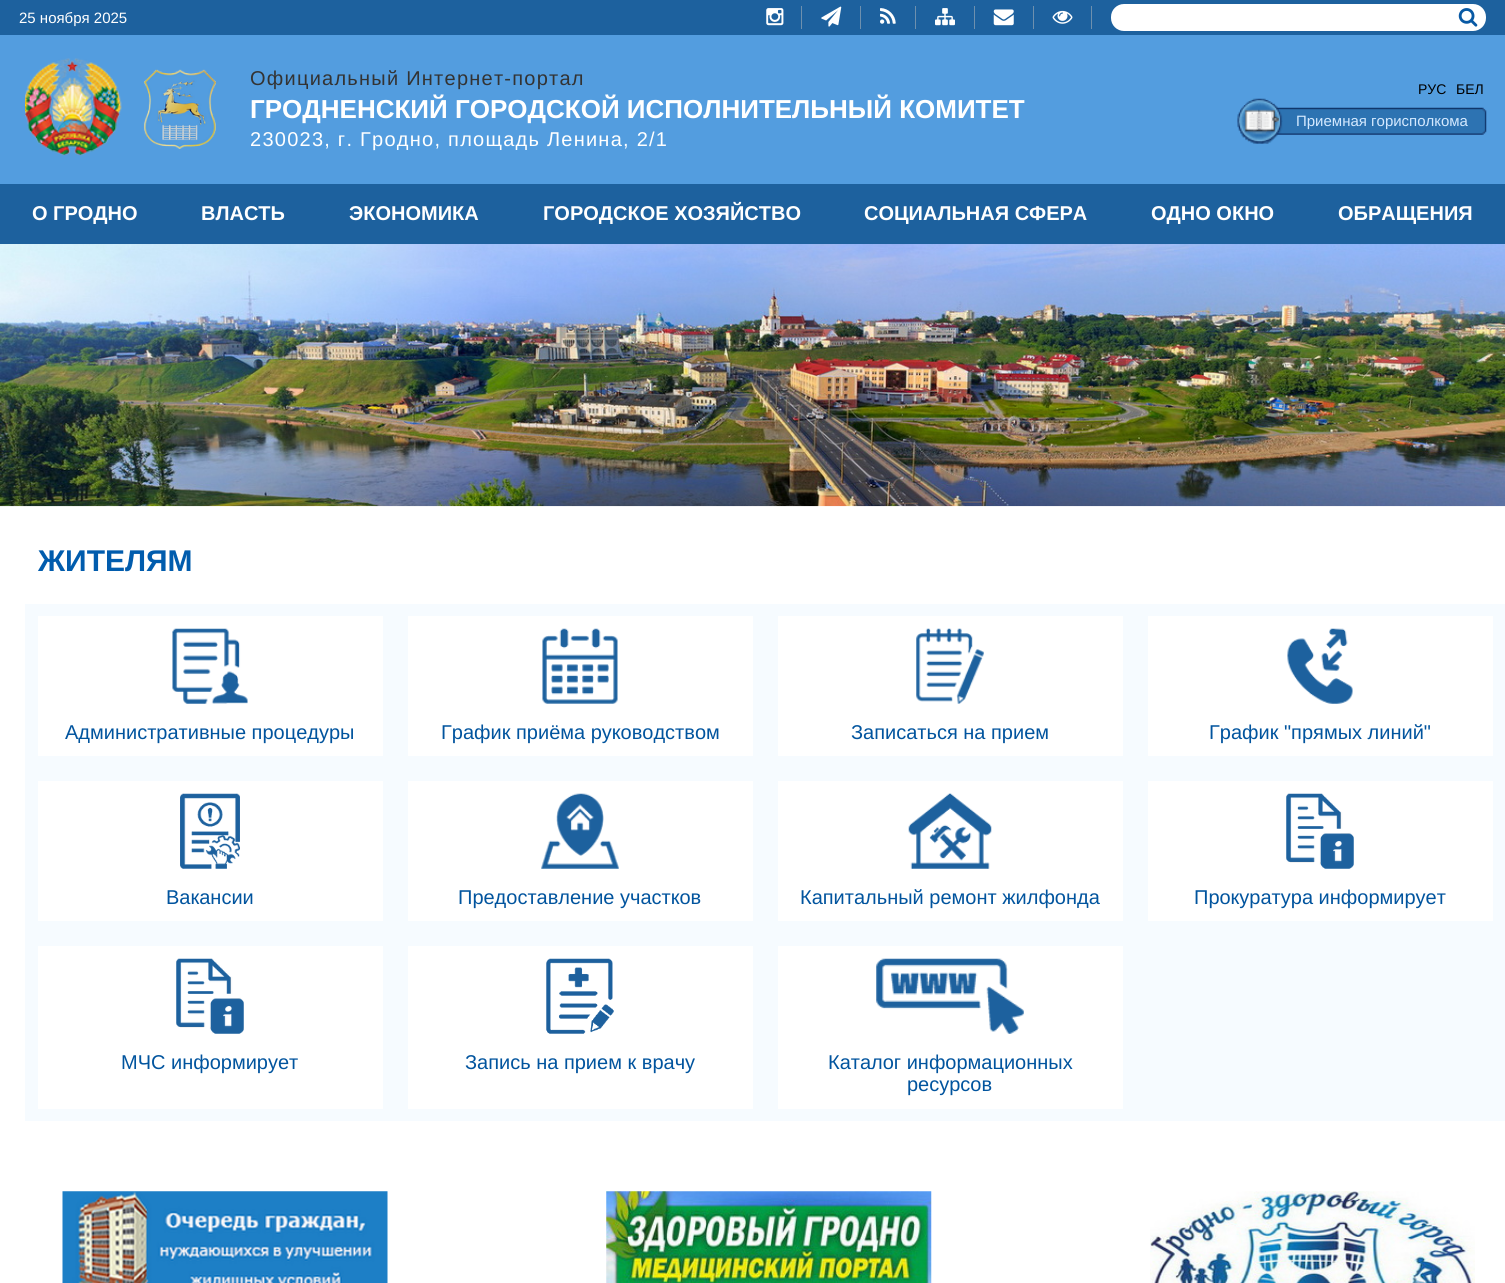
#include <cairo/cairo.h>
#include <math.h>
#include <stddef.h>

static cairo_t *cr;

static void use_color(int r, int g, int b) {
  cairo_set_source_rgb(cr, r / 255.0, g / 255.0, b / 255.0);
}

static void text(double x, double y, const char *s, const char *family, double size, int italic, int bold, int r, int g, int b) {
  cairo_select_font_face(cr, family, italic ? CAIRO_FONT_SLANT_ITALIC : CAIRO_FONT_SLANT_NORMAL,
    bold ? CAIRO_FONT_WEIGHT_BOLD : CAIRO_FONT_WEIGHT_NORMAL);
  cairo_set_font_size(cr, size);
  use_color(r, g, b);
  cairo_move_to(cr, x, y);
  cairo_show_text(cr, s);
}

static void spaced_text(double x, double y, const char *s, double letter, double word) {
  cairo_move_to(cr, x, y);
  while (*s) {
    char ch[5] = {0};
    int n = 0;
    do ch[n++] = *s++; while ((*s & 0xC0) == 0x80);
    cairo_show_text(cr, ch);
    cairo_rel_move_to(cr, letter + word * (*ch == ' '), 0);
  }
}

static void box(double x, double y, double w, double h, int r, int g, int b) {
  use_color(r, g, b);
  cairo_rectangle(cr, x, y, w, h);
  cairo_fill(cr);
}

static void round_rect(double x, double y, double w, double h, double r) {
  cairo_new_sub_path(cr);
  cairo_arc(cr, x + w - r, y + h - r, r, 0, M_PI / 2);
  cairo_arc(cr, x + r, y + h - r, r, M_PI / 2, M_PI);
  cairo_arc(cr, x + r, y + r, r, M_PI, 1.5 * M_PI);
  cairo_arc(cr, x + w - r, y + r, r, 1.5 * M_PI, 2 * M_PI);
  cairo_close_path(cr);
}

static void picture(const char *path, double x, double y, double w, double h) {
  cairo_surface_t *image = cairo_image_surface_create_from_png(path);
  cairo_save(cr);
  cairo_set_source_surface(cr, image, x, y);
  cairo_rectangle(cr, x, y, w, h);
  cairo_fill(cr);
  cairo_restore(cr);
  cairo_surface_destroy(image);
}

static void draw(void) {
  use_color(255, 255, 255);
  cairo_paint(cr);
  box(0, 0, 1505, 35, 29, 97, 158);
  box(801, 6, 1, 23, 110, 144, 174);
  picture("img_01.png", 766, 8, 18, 18);
  box(860, 6, 1, 23, 110, 144, 174);
  picture("img_02.png", 821, 6, 21, 21);
  box(915, 6, 1, 23, 110, 144, 174);
  picture("img_03.png", 880, 8, 16, 16);
  box(974, 6, 1, 23, 110, 144, 174);
  picture("img_04.png", 935, 8, 20, 18);
  box(1033, 6, 1, 23, 110, 144, 174);
  picture("img_05.png", 993, 9, 21, 17);
  box(1091, 6, 1, 23, 110, 144, 174);
  picture("img_06.png", 1052, 10, 21, 14);
  use_color(255, 255, 255);
  round_rect(1111, 4, 375, 27, 13);
  cairo_fill(cr);
  picture("img_07.png", 1458, 8, 20, 19);
  box(0, 35, 1505, 149, 83, 157, 223);
  picture("img_08.png", 25, 58, 97, 98);
  picture("img_09.png", 143, 69, 73, 80);
  picture("img_10.png", 1237, 98, 250, 46);
  box(0, 184, 1505, 60, 29, 97, 158);
  picture("img_11.png", 0, 244, 1505, 263);
  box(25, 604, 1480, 517, 246, 251, 255);
  box(38, 616, 345, 140, 255, 255, 255);
  picture("img_12.png", 172, 628, 76, 76);
  box(408, 616, 345, 140, 255, 255, 255);
  picture("img_13.png", 542, 628, 76, 76);
  box(778, 616, 345, 140, 255, 255, 255);
  picture("img_14.png", 916, 628, 68, 76);
  box(1148, 616, 345, 140, 255, 255, 255);
  picture("img_15.png", 1287, 628, 66, 76);
  box(38, 781, 345, 140, 255, 255, 255);
  picture("img_16.png", 180, 793, 60, 76);
  box(408, 781, 345, 140, 255, 255, 255);
  picture("img_17.png", 541, 793, 78, 76);
  box(778, 781, 345, 140, 255, 255, 255);
  picture("img_18.png", 908, 793, 84, 76);
  box(1148, 781, 345, 140, 255, 255, 255);
  picture("img_19.png", 1286, 793, 68, 76);
  box(38, 946, 345, 163, 255, 255, 255);
  picture("img_19.png", 176, 958, 68, 76);
  box(408, 946, 345, 163, 255, 255, 255);
  picture("img_20.png", 546, 958, 68, 76);
  box(778, 946, 345, 163, 255, 255, 255);
  picture("img_21.png", 876, 958, 148, 76);
  picture("img_22.png", 62, 1191, 326, 92);
  picture("img_23.png", 606, 1191, 326, 92);
  picture("img_24.png", 1150, 1191, 325, 92);
  text(19, 23, "25 ноября 2025", "Liberation Sans", 15, 0, 0, 255, 255, 255);
  cairo_set_font_size(cr, 20);
  use_color(51, 51, 51);
  spaced_text(250, 85, "Официальный Интернет-портал", 1.25, 0);
  text(250, 118, "ГРОДНЕНСКИЙ ГОРОДСКОЙ ИСПОЛНИТЕЛЬНЫЙ КОМИТЕТ", "Liberation Sans", 26, 0, 1, 255, 255, 255);
  cairo_select_font_face(cr, "Liberation Sans", CAIRO_FONT_SLANT_NORMAL, CAIRO_FONT_WEIGHT_NORMAL);
  cairo_set_font_size(cr, 20);
  spaced_text(250, 146, "230023, г. Гродно, площадь Ленина, 2/1", 1.25, 0);
  text(1418, 94, "РУС", "Liberation Sans", 14, 0, 0, 0, 0, 0);
  text(1456, 94, "БЕЛ", "Liberation Sans", 14, 0, 0, 0, 0, 0);
  text(1296, 126, "Приемная горисполкома", "Liberation Sans", 15, 0, 0, 212, 233, 255);
  text(32, 220, "О ГРОДНО", "Liberation Sans", 20, 0, 1, 255, 255, 255);
  text(201, 220, "ВЛАСТЬ", "Liberation Sans", 20, 0, 1, 255, 255, 255);
  text(349, 220, "ЭКОНОМИКА", "Liberation Sans", 20, 0, 1, 255, 255, 255);
  text(543, 220, "ГОРОДСКОЕ ХОЗЯЙСТВО", "Liberation Sans", 20, 0, 1, 255, 255, 255);
  text(864, 220, "СОЦИАЛЬНАЯ СФЕРА", "Liberation Sans", 20, 0, 1, 255, 255, 255);
  text(1151, 220, "ОДНО ОКНО", "Liberation Sans", 20, 0, 1, 255, 255, 255);
  text(1338, 220, "ОБРАЩЕНИЯ", "Liberation Sans", 20, 0, 1, 255, 255, 255);
  text(38, 571, "ЖИТЕЛЯМ", "Liberation Sans", 30, 0, 1, 1, 92, 173);
  text(65, 739, "Административные процедуры", "Liberation Sans", 20, 0, 0, 1, 84, 158);
  text(441, 739, "График приёма руководством", "Liberation Sans", 20, 0, 0, 1, 84, 158);
  text(851, 739, "Записаться на прием", "Liberation Sans", 20, 0, 0, 1, 84, 158);
  text(1209, 739, "График \"прямых линий\"", "Liberation Sans", 20, 0, 0, 1, 84, 158);
  text(166, 904, "Вакансии", "Liberation Sans", 20, 0, 0, 1, 84, 158);
  text(458, 904, "Предоставление участков", "Liberation Sans", 20, 0, 0, 1, 84, 158);
  text(800, 904, "Капитальный ремонт жилфонда", "Liberation Sans", 20, 0, 0, 1, 84, 158);
  text(1194, 904, "Прокуратура информирует", "Liberation Sans", 20, 0, 0, 1, 84, 158);
  text(121, 1069, "МЧС информирует", "Liberation Sans", 20, 0, 0, 1, 84, 158);
  text(465, 1069, "Запись на прием к врачу", "Liberation Sans", 20, 0, 0, 1, 84, 158);
  text(828, 1069, "Каталог информационных", "Liberation Sans", 20, 0, 0, 1, 84, 158);
  text(907, 1091, "ресурсов", "Liberation Sans", 20, 0, 0, 1, 84, 158);
}

int main(void) {
  cairo_surface_t *surface = cairo_image_surface_create(CAIRO_FORMAT_RGB24, 1505, 1283);
  cr = cairo_create(surface);
  cairo_font_options_t *options = cairo_font_options_create();
  cairo_font_options_set_hint_metrics(options, CAIRO_HINT_METRICS_OFF);
  cairo_font_options_set_hint_style(options, CAIRO_HINT_STYLE_NONE);
  cairo_set_font_options(cr, options);
  cairo_set_miter_limit(cr, 4);
  draw();
  cairo_surface_write_to_png(surface, "out.png");
  cairo_font_options_destroy(options);
  cairo_destroy(cr);
  cairo_surface_destroy(surface);
  return 0;
}
